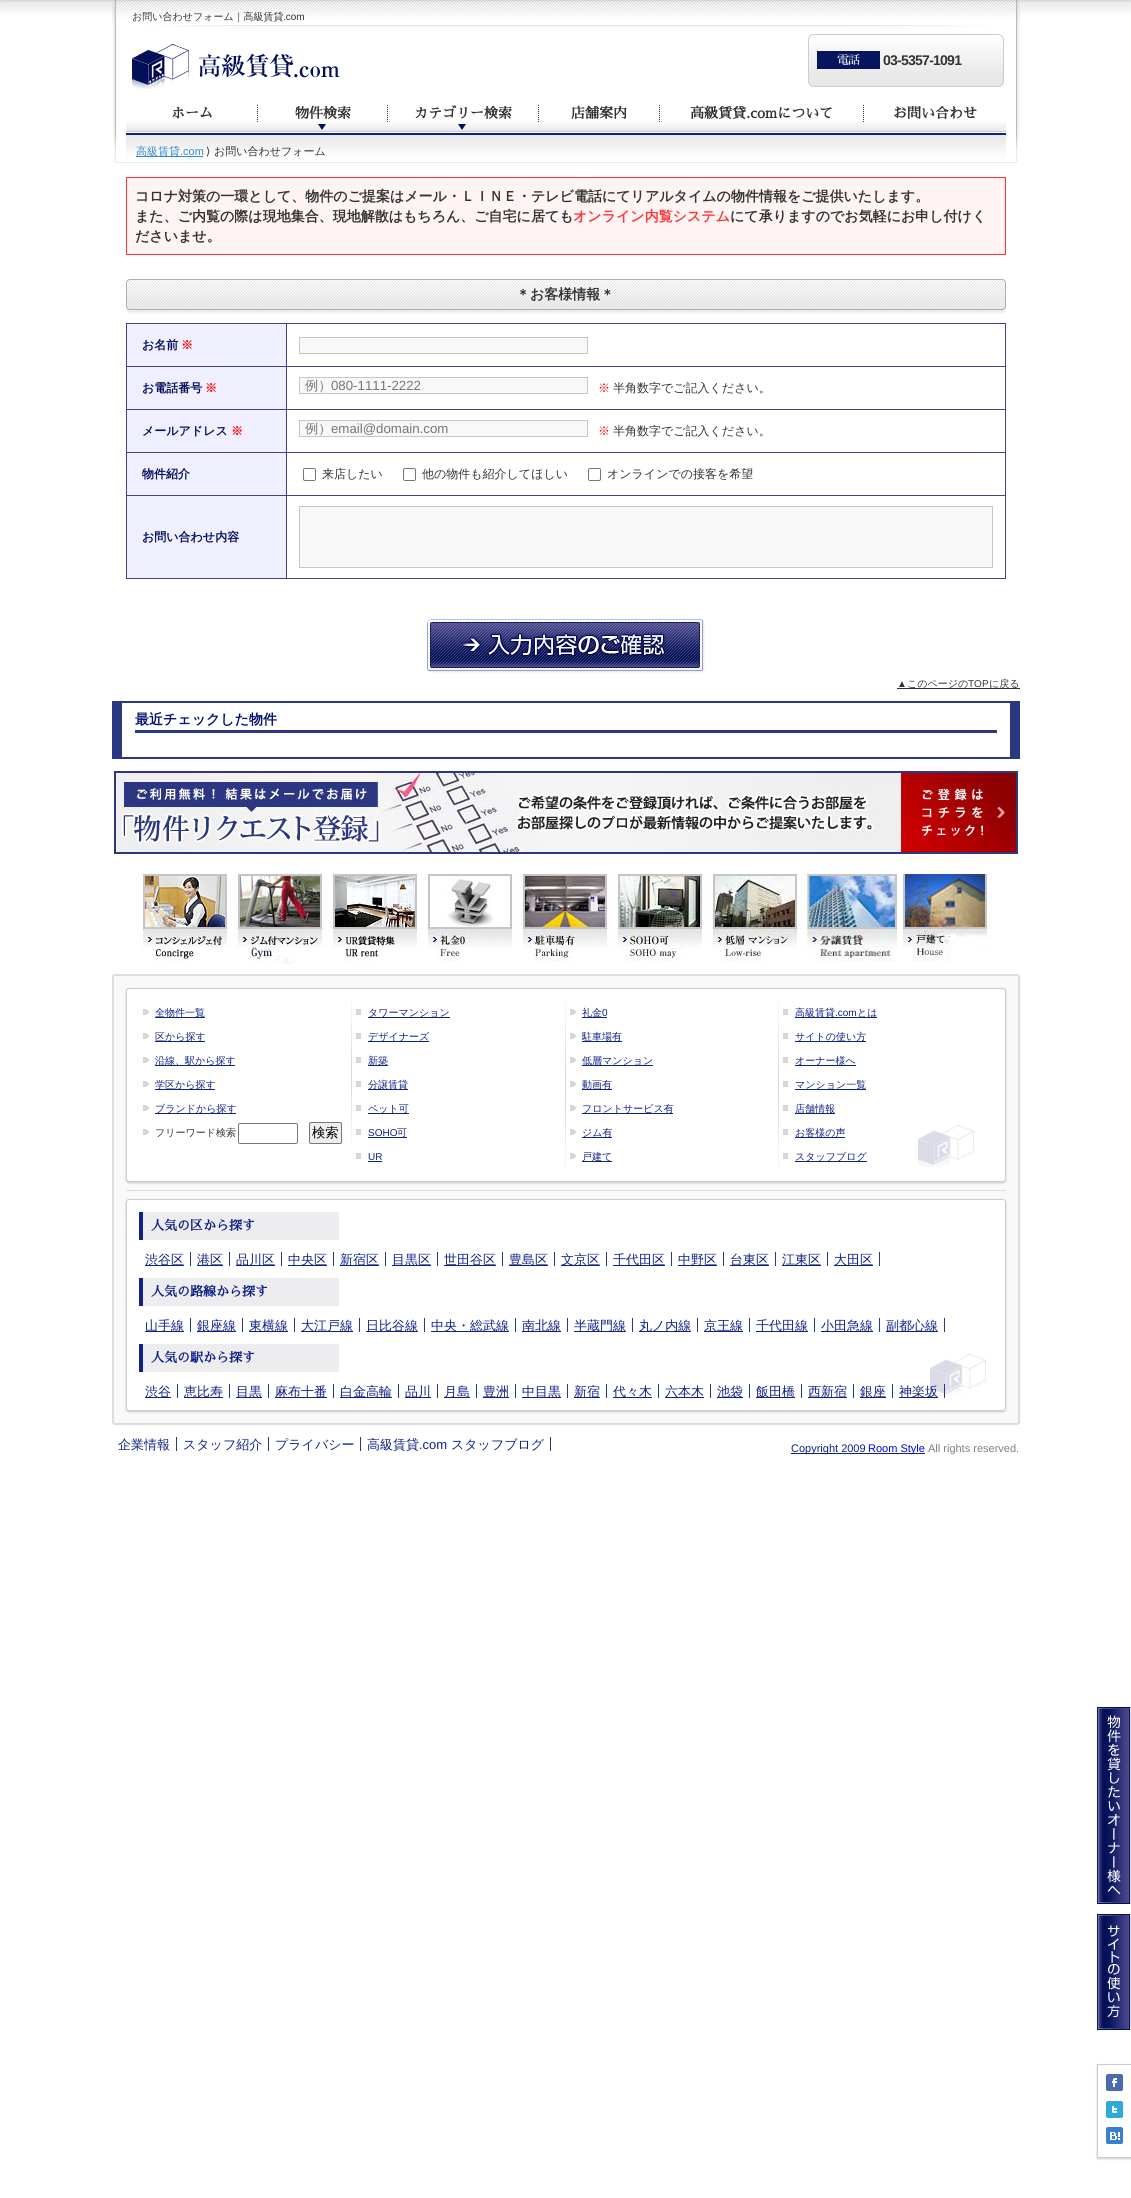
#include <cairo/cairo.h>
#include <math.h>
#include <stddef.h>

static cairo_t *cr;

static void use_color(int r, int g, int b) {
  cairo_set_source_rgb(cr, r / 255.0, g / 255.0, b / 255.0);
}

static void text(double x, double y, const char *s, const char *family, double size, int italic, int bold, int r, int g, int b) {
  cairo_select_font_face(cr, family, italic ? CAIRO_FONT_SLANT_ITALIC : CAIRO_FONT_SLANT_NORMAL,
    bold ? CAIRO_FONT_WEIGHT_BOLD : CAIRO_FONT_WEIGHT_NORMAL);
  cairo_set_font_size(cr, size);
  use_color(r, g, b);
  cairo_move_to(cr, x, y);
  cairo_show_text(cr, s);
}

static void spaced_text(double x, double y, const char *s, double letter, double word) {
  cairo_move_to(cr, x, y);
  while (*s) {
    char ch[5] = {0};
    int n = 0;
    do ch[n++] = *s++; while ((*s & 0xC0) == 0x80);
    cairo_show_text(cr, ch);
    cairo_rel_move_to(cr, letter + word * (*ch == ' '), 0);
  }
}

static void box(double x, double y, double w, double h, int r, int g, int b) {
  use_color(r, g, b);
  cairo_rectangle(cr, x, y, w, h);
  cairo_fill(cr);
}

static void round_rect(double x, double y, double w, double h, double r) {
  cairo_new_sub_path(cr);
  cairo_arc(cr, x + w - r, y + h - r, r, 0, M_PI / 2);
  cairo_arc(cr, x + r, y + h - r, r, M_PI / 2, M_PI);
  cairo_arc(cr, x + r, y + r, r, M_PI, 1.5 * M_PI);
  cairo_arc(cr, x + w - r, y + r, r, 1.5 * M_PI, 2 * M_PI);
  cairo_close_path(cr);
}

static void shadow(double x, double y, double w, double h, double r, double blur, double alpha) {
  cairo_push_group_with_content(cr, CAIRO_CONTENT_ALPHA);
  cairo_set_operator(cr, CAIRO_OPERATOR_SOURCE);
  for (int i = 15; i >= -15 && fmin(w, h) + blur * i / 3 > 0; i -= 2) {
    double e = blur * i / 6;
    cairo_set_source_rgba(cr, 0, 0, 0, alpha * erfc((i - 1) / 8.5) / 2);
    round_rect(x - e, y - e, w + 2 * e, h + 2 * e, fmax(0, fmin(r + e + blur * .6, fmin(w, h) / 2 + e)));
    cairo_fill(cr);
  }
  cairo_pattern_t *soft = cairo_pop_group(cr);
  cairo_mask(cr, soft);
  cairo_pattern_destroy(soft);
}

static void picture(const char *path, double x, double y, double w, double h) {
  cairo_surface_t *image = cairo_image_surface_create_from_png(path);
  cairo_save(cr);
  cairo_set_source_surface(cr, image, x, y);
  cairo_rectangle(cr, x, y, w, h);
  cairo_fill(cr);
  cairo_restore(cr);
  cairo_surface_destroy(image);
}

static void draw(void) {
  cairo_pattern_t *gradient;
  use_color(255, 255, 255);
  cairo_paint(cr);
  gradient = cairo_pattern_create_linear(566, 0, 566, 150);
  cairo_pattern_add_color_stop_rgba(gradient, 0, 0.906, 0.906, 0.906, 1);
  cairo_pattern_add_color_stop_rgba(gradient, 0.11, 1, 1, 1, 1);
  cairo_set_source(cr, gradient);
  cairo_pattern_destroy(gradient);
  cairo_rectangle(cr, 0, 0, 1131, 15);
  cairo_fill(cr);
  picture("img_01.png", 112, 0, 908, 135);
  use_color(0, 0, 0);
  shadow(0, -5, 1131, 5, 0, 1.5, 0.2);
  picture("img_02.png", 132, 44, 208, 45);
  cairo_save(cr);
  round_rect(808, 34, 196, 53, 6);
  cairo_clip(cr);
  gradient = cairo_pattern_create_linear(906, 35, 906, 86);
  cairo_pattern_add_color_stop_rgba(gradient, 0, 1, 1, 1, 1);
  cairo_pattern_add_color_stop_rgba(gradient, 0.8, 0.91, 0.91, 0.91, 1);
  cairo_set_source(cr, gradient);
  cairo_pattern_destroy(gradient);
  cairo_rectangle(cr, 808, 35, 196, 51);
  cairo_fill(cr);
  cairo_restore(cr);
  round_rect(808.5, 34.5, 195, 52, 5.5);
  use_color(204, 204, 204);
  cairo_set_line_width(cr, 1);
  cairo_stroke(cr);
  box(817, 51, 63, 18, 7, 21, 94);
  box(126, 133, 880, 2, 16, 33, 132);
  gradient = cairo_pattern_create_linear(192, 132, 192, 98);
  cairo_pattern_add_color_stop_rgba(gradient, 0, 0.906, 0.906, 0.906, 1);
  cairo_pattern_add_color_stop_rgba(gradient, 0.35, 1, 1, 1, 1);
  cairo_set_source(cr, gradient);
  cairo_pattern_destroy(gradient);
  cairo_rectangle(cr, 126, 121, 132, 10);
  cairo_fill(cr);
  box(126, 131, 880, 1, 204, 204, 204);
  cairo_new_path(cr);
  cairo_move_to(cr, 257.5, 105);
  cairo_line_to(cr, 257.5, 122);
  use_color(51, 51, 51);
  cairo_set_dash(cr, (double[]){1, 1}, 2, 0);
  cairo_stroke(cr);
  gradient = cairo_pattern_create_linear(323, 132, 323, 98);
  cairo_pattern_add_color_stop_rgba(gradient, 0, 0.906, 0.906, 0.906, 1);
  cairo_pattern_add_color_stop_rgba(gradient, 0.35, 1, 1, 1, 1);
  cairo_set_source(cr, gradient);
  cairo_pattern_destroy(gradient);
  cairo_rectangle(cr, 258, 121, 130, 10);
  cairo_fill(cr);
  use_color(3, 16, 87);
  cairo_new_path(cr);
  cairo_move_to(cr, 318, 124);
  cairo_line_to(cr, 326, 124);
  cairo_line_to(cr, 322, 130);
  cairo_close_path(cr);
  cairo_fill(cr);
  cairo_new_path(cr);
  cairo_move_to(cr, 387.5, 105);
  cairo_line_to(cr, 387.5, 122);
  use_color(51, 51, 51);
  cairo_stroke(cr);
  gradient = cairo_pattern_create_linear(464, 132, 464, 98);
  cairo_pattern_add_color_stop_rgba(gradient, 0, 0.906, 0.906, 0.906, 1);
  cairo_pattern_add_color_stop_rgba(gradient, 0.35, 1, 1, 1, 1);
  cairo_set_source(cr, gradient);
  cairo_pattern_destroy(gradient);
  cairo_rectangle(cr, 388, 121, 151, 10);
  cairo_fill(cr);
  use_color(3, 16, 87);
  cairo_new_path(cr);
  cairo_move_to(cr, 458, 124);
  cairo_line_to(cr, 466, 124);
  cairo_line_to(cr, 462, 130);
  cairo_close_path(cr);
  cairo_fill(cr);
  cairo_new_path(cr);
  cairo_move_to(cr, 538.5, 105);
  cairo_line_to(cr, 538.5, 122);
  use_color(51, 51, 51);
  cairo_stroke(cr);
  gradient = cairo_pattern_create_linear(600, 132, 600, 98);
  cairo_pattern_add_color_stop_rgba(gradient, 0, 0.906, 0.906, 0.906, 1);
  cairo_pattern_add_color_stop_rgba(gradient, 0.35, 1, 1, 1, 1);
  cairo_set_source(cr, gradient);
  cairo_pattern_destroy(gradient);
  cairo_rectangle(cr, 539, 121, 121, 10);
  cairo_fill(cr);
  cairo_new_path(cr);
  cairo_move_to(cr, 659.5, 105);
  cairo_line_to(cr, 659.5, 122);
  use_color(51, 51, 51);
  cairo_stroke(cr);
  gradient = cairo_pattern_create_linear(762, 132, 762, 98);
  cairo_pattern_add_color_stop_rgba(gradient, 0, 0.906, 0.906, 0.906, 1);
  cairo_pattern_add_color_stop_rgba(gradient, 0.35, 1, 1, 1, 1);
  cairo_set_source(cr, gradient);
  cairo_pattern_destroy(gradient);
  cairo_rectangle(cr, 660, 121, 204, 10);
  cairo_fill(cr);
  cairo_new_path(cr);
  cairo_move_to(cr, 863.5, 105);
  cairo_line_to(cr, 863.5, 122);
  use_color(51, 51, 51);
  cairo_stroke(cr);
  gradient = cairo_pattern_create_linear(935, 132, 935, 98);
  cairo_pattern_add_color_stop_rgba(gradient, 0, 0.906, 0.906, 0.906, 1);
  cairo_pattern_add_color_stop_rgba(gradient, 0.35, 1, 1, 1, 1);
  cairo_set_source(cr, gradient);
  cairo_pattern_destroy(gradient);
  cairo_rectangle(cr, 864, 121, 142, 10);
  cairo_fill(cr);
  picture("img_03.png", 113, 135, 906, 28);
  box(136, 156, 67, 1, 51, 136, 204);
  use_color(255, 244, 244);
  cairo_rectangle(cr, 126.5, 177.5, 879, 77);
  cairo_fill_preserve(cr);
  use_color(255, 51, 51);
  cairo_set_dash(cr, NULL, 0, 0);
  cairo_stroke(cr);
  picture("img_04.png", 126, 279, 880, 35);
  box(127, 324, 159, 42, 240, 239, 255);
  box(286, 323, 720, 1, 66, 65, 135);
  box(286, 366, 720, 1, 66, 65, 135);
  box(286, 409, 720, 1, 66, 65, 135);
  box(286, 452, 720, 1, 66, 65, 135);
  box(286, 495, 720, 1, 66, 65, 135);
  box(1005, 495, 1, 84, 66, 65, 135);
  box(286, 578, 720, 1, 66, 65, 135);
  box(286, 495, 1, 84, 66, 65, 135);
  box(126, 495, 161, 1, 66, 65, 135);
  box(286, 452, 1, 44, 66, 65, 135);
  box(126, 452, 161, 1, 66, 65, 135);
  box(286, 409, 1, 44, 66, 65, 135);
  box(126, 409, 161, 1, 66, 65, 135);
  box(286, 366, 1, 44, 66, 65, 135);
  box(126, 366, 161, 1, 66, 65, 135);
  box(286, 323, 1, 44, 66, 65, 135);
  box(126, 323, 161, 1, 66, 65, 135);
  box(126, 578, 161, 1, 66, 65, 135);
  box(126, 495, 1, 84, 66, 65, 135);
  box(126, 452, 1, 44, 66, 65, 135);
  box(126, 409, 1, 44, 66, 65, 135);
  box(126, 366, 1, 44, 66, 65, 135);
  box(126, 323, 1, 44, 66, 65, 135);
  box(1005, 452, 1, 44, 66, 65, 135);
  box(1005, 409, 1, 44, 66, 65, 135);
  box(1005, 366, 1, 44, 66, 65, 135);
  box(1005, 323, 1, 44, 66, 65, 135);
  use_color(248, 248, 248);
  cairo_rectangle(cr, 299.5, 337.5, 288, 16);
  cairo_fill_preserve(cr);
  use_color(198, 198, 198);
  cairo_stroke(cr);
  box(127, 367, 159, 42, 240, 239, 255);
  use_color(248, 248, 248);
  cairo_rectangle(cr, 299.5, 377.5, 288, 16);
  cairo_fill_preserve(cr);
  use_color(198, 198, 198);
  cairo_stroke(cr);
  box(127, 410, 159, 42, 240, 239, 255);
  use_color(248, 248, 248);
  cairo_rectangle(cr, 299.5, 420.5, 288, 16);
  cairo_fill_preserve(cr);
  use_color(198, 198, 198);
  cairo_stroke(cr);
  box(127, 453, 159, 42, 240, 239, 255);
  round_rect(303.5, 468.5, 12, 12, 1.5);
  use_color(118, 118, 118);
  cairo_stroke(cr);
  round_rect(403.5, 468.5, 12, 12, 1.5);
  cairo_stroke(cr);
  round_rect(588.5, 468.5, 12, 12, 1.5);
  cairo_stroke(cr);
  box(127, 496, 159, 82, 240, 239, 255);
  use_color(248, 248, 248);
  cairo_rectangle(cr, 299.5, 506.5, 693, 61);
  cairo_fill_preserve(cr);
  use_color(198, 198, 198);
  cairo_stroke(cr);
  picture("img_05.png", 427, 619, 278, 54);
  box(897, 688, 123, 1, 46, 46, 46);
  box(122, 701, 888, 2, 44, 55, 130);
  box(1010, 701, 10, 56, 44, 55, 130);
  box(122, 757, 898, 2, 44, 55, 130);
  box(112, 701, 10, 58, 44, 55, 130);
  box(135, 730, 862, 3, 44, 55, 130);
  picture("img_06.png", 114, 771, 904, 83);
  picture("img_07.png", 139, 874, 93, 88);
  picture("img_08.png", 234, 874, 93, 90);
  picture("img_09.png", 329, 874, 93, 88);
  picture("img_10.png", 422, 874, 95, 88);
  picture("img_11.png", 520, 874, 92, 88);
  picture("img_12.png", 612, 874, 95, 88);
  picture("img_13.png", 708, 874, 94, 88);
  picture("img_14.png", 802, 874, 95, 88);
  picture("img_15.png", 899, 874, 93, 88);
  use_color(249, 249, 249);
  round_rect(113, 975, 906, 449, 2);
  cairo_fill_preserve(cr);
  use_color(220, 220, 220);
  cairo_set_line_width(cr, 2);
  cairo_stroke(cr);
  box(126, 1190, 880, 1, 221, 221, 221);
  use_color(0, 0, 0);
  shadow(126, 989, 880, 194, 3, 1, 0.2);
  use_color(255, 255, 255);
  round_rect(126.5, 988.5, 879, 193, 2.5);
  cairo_fill_preserve(cr);
  use_color(204, 204, 204);
  cairo_set_line_width(cr, 1);
  cairo_stroke(cr);
  picture("img_16.png", 918, 1125, 56, 42);
  picture("img_17.png", 351, 1001, 1, 144);
  picture("img_18.png", 143, 1009, 6, 6);
  box(155, 1017, 50, 1, 16, 33, 132);
  picture("img_18.png", 143, 1033, 6, 6);
  box(155, 1041, 50, 1, 16, 33, 132);
  picture("img_18.png", 143, 1057, 6, 6);
  box(155, 1065, 80, 1, 16, 33, 132);
  picture("img_18.png", 143, 1081, 6, 6);
  box(155, 1089, 60, 1, 16, 33, 132);
  picture("img_18.png", 143, 1105, 6, 6);
  box(155, 1113, 81, 1, 16, 33, 132);
  picture("img_18.png", 143, 1129, 6, 6);
  round_rect(238.5, 1123.5, 59, 20, 1.5);
  use_color(118, 118, 118);
  cairo_stroke(cr);
  use_color(239, 239, 239);
  round_rect(309.5, 1122.5, 32, 21, 1.5);
  cairo_fill_preserve(cr);
  use_color(118, 118, 118);
  cairo_stroke(cr);
  picture("img_19.png", 565, 1001, 1, 168);
  box(356, 1009, 5, 6, 215, 214, 214);
  box(368, 1017, 82, 1, 16, 33, 132);
  box(356, 1033, 5, 6, 215, 214, 214);
  box(368, 1041, 61, 1, 16, 33, 132);
  box(356, 1057, 5, 6, 215, 214, 214);
  box(368, 1065, 20, 1, 16, 33, 132);
  box(356, 1081, 5, 6, 215, 214, 214);
  box(368, 1089, 40, 1, 16, 33, 132);
  box(356, 1105, 5, 6, 215, 214, 214);
  box(368, 1113, 41, 1, 16, 33, 132);
  box(356, 1129, 5, 6, 215, 214, 214);
  box(368, 1137, 39, 1, 16, 33, 132);
  box(356, 1153, 5, 6, 215, 214, 214);
  box(368, 1161, 14, 1, 16, 33, 132);
  picture("img_20.png", 778, 1001, 1, 168);
  picture("img_21.png", 570, 1009, 6, 6);
  box(582, 1017, 25, 1, 16, 33, 132);
  picture("img_21.png", 570, 1033, 6, 6);
  box(582, 1041, 40, 1, 16, 33, 132);
  picture("img_21.png", 570, 1057, 6, 6);
  box(582, 1065, 71, 1, 16, 33, 132);
  picture("img_21.png", 570, 1081, 6, 6);
  box(582, 1089, 30, 1, 16, 33, 132);
  picture("img_21.png", 570, 1105, 6, 6);
  box(582, 1113, 91, 1, 16, 33, 132);
  picture("img_21.png", 570, 1129, 6, 6);
  box(582, 1137, 30, 1, 16, 33, 132);
  picture("img_21.png", 570, 1153, 6, 6);
  box(582, 1161, 30, 1, 16, 33, 132);
  box(783, 1009, 5, 6, 215, 214, 214);
  box(795, 1017, 82, 1, 16, 33, 132);
  box(783, 1033, 5, 6, 215, 214, 214);
  box(795, 1041, 71, 1, 16, 33, 132);
  box(783, 1057, 5, 6, 215, 214, 214);
  box(795, 1065, 61, 1, 16, 33, 132);
  box(783, 1081, 5, 6, 215, 214, 214);
  box(795, 1089, 71, 1, 16, 33, 132);
  box(783, 1105, 5, 6, 215, 214, 214);
  box(795, 1113, 40, 1, 16, 33, 132);
  box(783, 1129, 5, 6, 215, 214, 214);
  box(795, 1137, 50, 1, 16, 33, 132);
  box(783, 1153, 5, 6, 215, 214, 214);
  box(795, 1161, 72, 1, 16, 33, 132);
  use_color(0, 0, 0);
  shadow(126, 1200, 880, 212, 3, 1, 0.2);
  use_color(255, 255, 255);
  round_rect(126, 1199, 880, 212, 3);
  cairo_fill(cr);
  picture("img_16.png", 930, 1354, 56, 42);
  round_rect(126.5, 1199.5, 879, 211, 2.5);
  use_color(204, 204, 204);
  cairo_stroke(cr);
  box(143, 1212, 196, 28, 237, 237, 240);
  box(139, 1212, 4, 28, 16, 33, 132);
  box(190, 1252, 1, 14, 44, 55, 130);
  box(145, 1265, 39, 1, 16, 33, 132);
  box(229, 1252, 1, 14, 44, 55, 130);
  box(197, 1265, 26, 1, 16, 33, 132);
  box(281, 1252, 1, 14, 44, 55, 130);
  box(236, 1265, 39, 1, 16, 33, 132);
  box(333, 1252, 1, 14, 44, 55, 130);
  box(288, 1265, 39, 1, 16, 33, 132);
  box(385, 1252, 1, 14, 44, 55, 130);
  box(340, 1265, 39, 1, 16, 33, 132);
  box(437, 1252, 1, 14, 44, 55, 130);
  box(392, 1265, 39, 1, 16, 33, 132);
  box(502, 1252, 1, 14, 44, 55, 130);
  box(444, 1265, 52, 1, 16, 33, 132);
  box(554, 1252, 1, 14, 44, 55, 130);
  box(509, 1265, 39, 1, 16, 33, 132);
  box(606, 1252, 1, 14, 44, 55, 130);
  box(561, 1265, 39, 1, 16, 33, 132);
  box(671, 1252, 1, 14, 44, 55, 130);
  box(613, 1265, 52, 1, 16, 33, 132);
  box(723, 1252, 1, 14, 44, 55, 130);
  box(678, 1265, 39, 1, 16, 33, 132);
  box(775, 1252, 1, 14, 44, 55, 130);
  box(730, 1265, 39, 1, 16, 33, 132);
  box(827, 1252, 1, 14, 44, 55, 130);
  box(782, 1265, 39, 1, 16, 33, 132);
  box(879, 1252, 1, 14, 44, 55, 130);
  box(834, 1265, 39, 1, 16, 33, 132);
  box(143, 1278, 196, 28, 237, 237, 240);
  box(139, 1278, 4, 28, 16, 33, 132);
  box(190, 1318, 1, 14, 44, 55, 130);
  box(145, 1331, 39, 1, 16, 33, 132);
  box(242, 1318, 1, 14, 44, 55, 130);
  box(197, 1331, 39, 1, 16, 33, 132);
  box(294, 1318, 1, 14, 44, 55, 130);
  box(249, 1331, 39, 1, 16, 33, 132);
  box(359, 1318, 1, 14, 44, 55, 130);
  box(301, 1331, 52, 1, 16, 33, 132);
  box(424, 1318, 1, 14, 44, 55, 130);
  box(366, 1331, 52, 1, 16, 33, 132);
  box(515, 1318, 1, 14, 44, 55, 130);
  box(431, 1331, 78, 1, 16, 33, 132);
  box(567, 1318, 1, 14, 44, 55, 130);
  box(522, 1331, 39, 1, 16, 33, 132);
  box(632, 1318, 1, 14, 44, 55, 130);
  box(574, 1331, 52, 1, 16, 33, 132);
  box(697, 1318, 1, 14, 44, 55, 130);
  box(639, 1331, 52, 1, 16, 33, 132);
  box(749, 1318, 1, 14, 44, 55, 130);
  box(704, 1331, 39, 1, 16, 33, 132);
  box(814, 1318, 1, 14, 44, 55, 130);
  box(756, 1331, 52, 1, 16, 33, 132);
  box(879, 1318, 1, 14, 44, 55, 130);
  box(821, 1331, 52, 1, 16, 33, 132);
  box(944, 1318, 1, 14, 44, 55, 130);
  box(886, 1331, 52, 1, 16, 33, 132);
  box(143, 1344, 196, 28, 237, 237, 240);
  box(139, 1344, 4, 28, 16, 33, 132);
  box(177, 1384, 1, 14, 44, 55, 130);
  box(145, 1397, 26, 1, 16, 33, 132);
  box(229, 1384, 1, 14, 44, 55, 130);
  box(184, 1397, 39, 1, 16, 33, 132);
  box(268, 1384, 1, 14, 44, 55, 130);
  box(236, 1397, 26, 1, 16, 33, 132);
  box(333, 1384, 1, 14, 44, 55, 130);
  box(275, 1397, 52, 1, 16, 33, 132);
  box(398, 1384, 1, 14, 44, 55, 130);
  box(340, 1397, 52, 1, 16, 33, 132);
  box(437, 1384, 1, 14, 44, 55, 130);
  box(405, 1397, 26, 1, 16, 33, 132);
  box(476, 1384, 1, 14, 44, 55, 130);
  box(444, 1397, 26, 1, 16, 33, 132);
  box(515, 1384, 1, 14, 44, 55, 130);
  box(483, 1397, 26, 1, 16, 33, 132);
  box(567, 1384, 1, 14, 44, 55, 130);
  box(522, 1397, 39, 1, 16, 33, 132);
  box(606, 1384, 1, 14, 44, 55, 130);
  box(574, 1397, 26, 1, 16, 33, 132);
  box(658, 1384, 1, 14, 44, 55, 130);
  box(613, 1397, 39, 1, 16, 33, 132);
  box(710, 1384, 1, 14, 44, 55, 130);
  box(665, 1397, 39, 1, 16, 33, 132);
  box(749, 1384, 1, 14, 44, 55, 130);
  box(717, 1397, 26, 1, 16, 33, 132);
  box(801, 1384, 1, 14, 44, 55, 130);
  box(756, 1397, 39, 1, 16, 33, 132);
  box(853, 1384, 1, 14, 44, 55, 130);
  box(808, 1397, 39, 1, 16, 33, 132);
  box(892, 1384, 1, 14, 44, 55, 130);
  box(860, 1397, 26, 1, 16, 33, 132);
  box(944, 1384, 1, 14, 44, 55, 130);
  box(899, 1397, 39, 1, 16, 33, 132);
  box(176, 1437, 1, 14, 44, 55, 130);
  box(268, 1437, 1, 14, 44, 55, 130);
  box(360, 1437, 1, 14, 44, 55, 130);
  box(550, 1437, 1, 14, 44, 55, 130);
  box(791, 1453, 134, 1, 16, 33, 132);
  picture("img_22.png", 1097, 1707, 34, 197);
  picture("img_23.png", 1097, 1914, 34, 116);
  cairo_save(cr);
  cairo_set_fill_rule(cr, CAIRO_FILL_RULE_EVEN_ODD);
  cairo_new_path(cr);
  cairo_move_to(cr, 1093, 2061);
  cairo_line_to(cr, 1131, 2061);
  cairo_line_to(cr, 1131, 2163);
  cairo_line_to(cr, 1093, 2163);
  cairo_close_path(cr);
  cairo_move_to(cr, 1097, 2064);
  cairo_line_to(cr, 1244, 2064);
  cairo_line_to(cr, 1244, 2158);
  cairo_line_to(cr, 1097, 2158);
  cairo_close_path(cr);
  cairo_clip(cr);
  use_color(0, 0, 0);
  shadow(1097, 2065, 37, 94, 0, 1, 0.2);
  cairo_restore(cr);
  cairo_rectangle(cr, 1097.5, 2064.5, 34, 93);
  use_color(204, 204, 204);
  cairo_stroke(cr);
  picture("img_24.png", 1106, 2074, 17, 17);
  picture("img_25.png", 1106, 2101, 17, 17);
  picture("img_26.png", 1106, 2127, 17, 17);
  text(132, 20, "お問い合わせフォーム｜高級賃貸", "WenQuanYi Zen Hei Medium", 10, 0, 0, 51, 51, 51);
  text(283, 20, ".com", "Liberation Sans", 10, 0, 0, 51, 51, 51);
  cairo_select_font_face(cr, "Sawarabi Mincho", CAIRO_FONT_SLANT_NORMAL, CAIRO_FONT_WEIGHT_NORMAL);
  cairo_set_font_size(cr, 12);
  use_color(255, 255, 255);
  spaced_text(837, 64, "電話", -1, 0);
  cairo_select_font_face(cr, "Liberation Sans", CAIRO_FONT_SLANT_NORMAL, CAIRO_FONT_WEIGHT_BOLD);
  cairo_set_font_size(cr, 14);
  use_color(51, 51, 51);
  spaced_text(883, 65, "03-5357-1091", -0.75, 0);
  text(171, 118, "ホーム", "Sawarabi Mincho", 14, 0, 1, 51, 51, 51);
  text(295, 118, "物件検索", "Sawarabi Mincho", 14, 0, 1, 51, 51, 51);
  text(414, 118, "カテゴリー検索", "Sawarabi Mincho", 14, 0, 1, 51, 51, 51);
  text(571, 118, "店舗案内", "Sawarabi Mincho", 14, 0, 1, 51, 51, 51);
  text(690, 118, "高級賃貸.comについて", "Sawarabi Mincho", 14, 0, 1, 51, 51, 51);
  text(893, 118, "お問い合わせ", "Sawarabi Mincho", 14, 0, 1, 51, 51, 51);
  text(136, 155, "高級賃貸", "WenQuanYi Zen Hei Medium", 11, 0, 0, 51, 136, 204);
  text(180, 155, ".com", "Liberation Sans", 11, 0, 0, 51, 136, 204);
  text(206, 155, "⟩", "DejaVu Sans", 11, 0, 0, 51, 51, 51);
  text(214, 155, "お問い合わせフォーム", "WenQuanYi Zen Hei Medium", 11, 0, 0, 51, 51, 51);
  text(135, 201, "コロナ対策の一環として、物件のご提案はメール・ＬＩＮＥ・テレビ電話にてリアルタイムの物件情報をご提供いたします。", "WenQuanYi Zen Hei", 14, 0, 1, 51, 51, 51);
  text(135, 221, "また、ご内覧の際は現地集合、現地解散はもちろん、ご自宅に居ても", "WenQuanYi Zen Hei", 14, 0, 1, 51, 51, 51);
  text(573, 221, "オンライン内覧システム", "WenQuanYi Zen Hei", 14, 0, 1, 255, 51, 51);
  text(730, 221, "にて承りますのでお気軽にお申し付けく", "WenQuanYi Zen Hei", 14, 0, 1, 51, 51, 51);
  text(135, 241, "ださいませ。", "WenQuanYi Zen Hei", 14, 0, 1, 51, 51, 51);
  text(516, 299, "＊お客様情報＊", "WenQuanYi Zen Hei", 14, 0, 1, 51, 51, 51);
  text(142, 349, "お名前", "WenQuanYi Zen Hei", 12, 0, 1, 3, 16, 87);
  text(181, 349, "※", "WenQuanYi Zen Hei", 12, 0, 1, 255, 0, 0);
  text(142, 392, "お電話番号", "WenQuanYi Zen Hei", 12, 0, 1, 3, 16, 87);
  text(205, 392, "※", "WenQuanYi Zen Hei", 12, 0, 1, 255, 0, 0);
  text(305, 390, "例）", "WenQuanYi Zen Hei Medium", 13.25, 0, 0, 117, 117, 117);
  text(331, 390, "080-1111-2222", "Liberation Sans", 13.25, 0, 0, 117, 117, 117);
  text(598, 392, "※", "WenQuanYi Zen Hei Medium", 12, 0, 0, 255, 0, 0);
  text(613, 392, "半角数字でご記入ください。", "WenQuanYi Zen Hei Medium", 12, 0, 0, 51, 51, 51);
  text(142, 435, "メールアドレス", "WenQuanYi Zen Hei", 12, 0, 1, 3, 16, 87);
  text(231, 435, "※", "WenQuanYi Zen Hei", 12, 0, 1, 255, 0, 0);
  text(305, 433, "例）", "WenQuanYi Zen Hei Medium", 13.25, 0, 0, 117, 117, 117);
  text(331, 433, "email@domain.com", "Liberation Sans", 13.25, 0, 0, 117, 117, 117);
  text(598, 435, "※", "WenQuanYi Zen Hei Medium", 12, 0, 0, 255, 0, 0);
  text(613, 435, "半角数字でご記入ください。", "WenQuanYi Zen Hei Medium", 12, 0, 0, 51, 51, 51);
  text(142, 478, "物件紹介", "WenQuanYi Zen Hei", 12, 0, 1, 3, 16, 87);
  text(322, 478, "来店したい", "WenQuanYi Zen Hei Medium", 12, 0, 0, 51, 51, 51);
  text(422, 478, "他の物件も紹介してほしい", "WenQuanYi Zen Hei Medium", 12, 0, 0, 51, 51, 51);
  text(607, 478, "オンラインでの接客を希望", "WenQuanYi Zen Hei Medium", 12, 0, 0, 51, 51, 51);
  text(142, 541, "お問い合わせ内容", "WenQuanYi Zen Hei", 12, 0, 1, 3, 16, 87);
  text(897, 687, "▲", "Liberation Sans", 10, 0, 0, 51, 51, 51);
  text(907, 687, "このページの", "WenQuanYi Zen Hei Medium", 10, 0, 0, 51, 51, 51);
  text(968, 687, "TOP", "Liberation Sans", 10, 0, 0, 51, 51, 51);
  text(989, 687, "に戻る", "WenQuanYi Zen Hei Medium", 10, 0, 0, 51, 51, 51);
  text(135, 724, "最近チェックした物件", "WenQuanYi Zen Hei", 14, 0, 1, 0, 17, 113);
  text(155, 1016, "全物件一覧", "WenQuanYi Zen Hei Medium", 10, 0, 0, 16, 33, 132);
  text(155, 1040, "区から探す", "WenQuanYi Zen Hei Medium", 10, 0, 0, 16, 33, 132);
  text(155, 1064, "沿線、駅から探す", "WenQuanYi Zen Hei Medium", 10, 0, 0, 16, 33, 132);
  text(155, 1088, "学区から探す", "WenQuanYi Zen Hei Medium", 10, 0, 0, 16, 33, 132);
  text(155, 1112, "ブランドから探す", "WenQuanYi Zen Hei Medium", 10, 0, 0, 16, 33, 132);
  text(155, 1136, "フリーワード検索", "WenQuanYi Zen Hei Medium", 10, 0, 0, 51, 51, 51);
  text(312, 1137, "検索", "WenQuanYi Zen Hei Medium", 13.25, 0, 0, 0, 0, 0);
  text(368, 1016, "タワーマンション", "WenQuanYi Zen Hei Medium", 10, 0, 0, 16, 33, 132);
  text(368, 1040, "デザイナーズ", "WenQuanYi Zen Hei Medium", 10, 0, 0, 16, 33, 132);
  text(368, 1064, "新築", "WenQuanYi Zen Hei Medium", 10, 0, 0, 16, 33, 132);
  text(368, 1088, "分譲賃貸", "WenQuanYi Zen Hei Medium", 10, 0, 0, 16, 33, 132);
  text(368, 1112, "ペット可", "WenQuanYi Zen Hei Medium", 10, 0, 0, 16, 33, 132);
  text(368, 1136, "SOHO", "Liberation Sans", 10, 0, 0, 16, 33, 132);
  text(397, 1136, "可", "WenQuanYi Zen Hei Medium", 10, 0, 0, 16, 33, 132);
  text(368, 1160, "UR", "Liberation Sans", 10, 0, 0, 16, 33, 132);
  text(582, 1016, "礼金", "WenQuanYi Zen Hei Medium", 10, 0, 0, 16, 33, 132);
  text(602, 1016, "0", "Liberation Sans", 10, 0, 0, 16, 33, 132);
  text(582, 1040, "駐車場有", "WenQuanYi Zen Hei Medium", 10, 0, 0, 16, 33, 132);
  text(582, 1064, "低層マンション", "WenQuanYi Zen Hei Medium", 10, 0, 0, 16, 33, 132);
  text(582, 1088, "動画有", "WenQuanYi Zen Hei Medium", 10, 0, 0, 16, 33, 132);
  text(582, 1112, "フロントサービス有", "WenQuanYi Zen Hei Medium", 10, 0, 0, 16, 33, 132);
  text(582, 1136, "ジム有", "WenQuanYi Zen Hei Medium", 10, 0, 0, 16, 33, 132);
  text(582, 1160, "戸建て", "WenQuanYi Zen Hei Medium", 10, 0, 0, 16, 33, 132);
  text(795, 1016, "高級賃貸", "WenQuanYi Zen Hei Medium", 10, 0, 0, 16, 33, 132);
  text(835, 1016, ".com", "Liberation Sans", 10, 0, 0, 16, 33, 132);
  text(857, 1016, "とは", "WenQuanYi Zen Hei Medium", 10, 0, 0, 16, 33, 132);
  text(795, 1040, "サイトの使い方", "WenQuanYi Zen Hei Medium", 10, 0, 0, 16, 33, 132);
  text(795, 1064, "オーナー様へ", "WenQuanYi Zen Hei Medium", 10, 0, 0, 16, 33, 132);
  text(795, 1088, "マンション一覧", "WenQuanYi Zen Hei Medium", 10, 0, 0, 16, 33, 132);
  text(795, 1112, "店舗情報", "WenQuanYi Zen Hei Medium", 10, 0, 0, 16, 33, 132);
  text(795, 1136, "お客様の声", "WenQuanYi Zen Hei Medium", 10, 0, 0, 16, 33, 132);
  text(795, 1160, "スタッフブログ", "WenQuanYi Zen Hei Medium", 10, 0, 0, 16, 33, 132);
  text(151, 1230, "人気の区から探す", "Sawarabi Mincho", 13, 0, 1, 16, 33, 132);
  text(145, 1264, "渋谷区", "WenQuanYi Zen Hei Medium", 13, 0, 0, 16, 33, 132);
  text(197, 1264, "港区", "WenQuanYi Zen Hei Medium", 13, 0, 0, 16, 33, 132);
  text(236, 1264, "品川区", "WenQuanYi Zen Hei Medium", 13, 0, 0, 16, 33, 132);
  text(288, 1264, "中央区", "WenQuanYi Zen Hei Medium", 13, 0, 0, 16, 33, 132);
  text(340, 1264, "新宿区", "WenQuanYi Zen Hei Medium", 13, 0, 0, 16, 33, 132);
  text(392, 1264, "目黒区", "WenQuanYi Zen Hei Medium", 13, 0, 0, 16, 33, 132);
  text(444, 1264, "世田谷区", "WenQuanYi Zen Hei Medium", 13, 0, 0, 16, 33, 132);
  text(509, 1264, "豊島区", "WenQuanYi Zen Hei Medium", 13, 0, 0, 16, 33, 132);
  text(561, 1264, "文京区", "WenQuanYi Zen Hei Medium", 13, 0, 0, 16, 33, 132);
  text(613, 1264, "千代田区", "WenQuanYi Zen Hei Medium", 13, 0, 0, 16, 33, 132);
  text(678, 1264, "中野区", "WenQuanYi Zen Hei Medium", 13, 0, 0, 16, 33, 132);
  text(730, 1264, "台東区", "WenQuanYi Zen Hei Medium", 13, 0, 0, 16, 33, 132);
  text(782, 1264, "江東区", "WenQuanYi Zen Hei Medium", 13, 0, 0, 16, 33, 132);
  text(834, 1264, "大田区", "WenQuanYi Zen Hei Medium", 13, 0, 0, 16, 33, 132);
  text(151, 1296, "人気の路線から探す", "Sawarabi Mincho", 13, 0, 1, 16, 33, 132);
  text(145, 1330, "山手線", "WenQuanYi Zen Hei Medium", 13, 0, 0, 16, 33, 132);
  text(197, 1330, "銀座線", "WenQuanYi Zen Hei Medium", 13, 0, 0, 16, 33, 132);
  text(249, 1330, "東横線", "WenQuanYi Zen Hei Medium", 13, 0, 0, 16, 33, 132);
  text(301, 1330, "大江戸線", "WenQuanYi Zen Hei Medium", 13, 0, 0, 16, 33, 132);
  text(366, 1330, "日比谷線", "WenQuanYi Zen Hei Medium", 13, 0, 0, 16, 33, 132);
  text(431, 1330, "中央・総武線", "WenQuanYi Zen Hei Medium", 13, 0, 0, 16, 33, 132);
  text(522, 1330, "南北線", "WenQuanYi Zen Hei Medium", 13, 0, 0, 16, 33, 132);
  text(574, 1330, "半蔵門線", "WenQuanYi Zen Hei Medium", 13, 0, 0, 16, 33, 132);
  text(639, 1330, "丸ノ内線", "WenQuanYi Zen Hei Medium", 13, 0, 0, 16, 33, 132);
  text(704, 1330, "京王線", "WenQuanYi Zen Hei Medium", 13, 0, 0, 16, 33, 132);
  text(756, 1330, "千代田線", "WenQuanYi Zen Hei Medium", 13, 0, 0, 16, 33, 132);
  text(821, 1330, "小田急線", "WenQuanYi Zen Hei Medium", 13, 0, 0, 16, 33, 132);
  text(886, 1330, "副都心線", "WenQuanYi Zen Hei Medium", 13, 0, 0, 16, 33, 132);
  text(151, 1362, "人気の駅から探す", "Sawarabi Mincho", 13, 0, 1, 16, 33, 132);
  text(145, 1396, "渋谷", "WenQuanYi Zen Hei Medium", 13, 0, 0, 16, 33, 132);
  text(184, 1396, "恵比寿", "WenQuanYi Zen Hei Medium", 13, 0, 0, 16, 33, 132);
  text(236, 1396, "目黒", "WenQuanYi Zen Hei Medium", 13, 0, 0, 16, 33, 132);
  text(275, 1396, "麻布十番", "WenQuanYi Zen Hei Medium", 13, 0, 0, 16, 33, 132);
  text(340, 1396, "白金高輪", "WenQuanYi Zen Hei Medium", 13, 0, 0, 16, 33, 132);
  text(405, 1396, "品川", "WenQuanYi Zen Hei Medium", 13, 0, 0, 16, 33, 132);
  text(444, 1396, "月島", "WenQuanYi Zen Hei Medium", 13, 0, 0, 16, 33, 132);
  text(483, 1396, "豊洲", "WenQuanYi Zen Hei Medium", 13, 0, 0, 16, 33, 132);
  text(522, 1396, "中目黒", "WenQuanYi Zen Hei Medium", 13, 0, 0, 16, 33, 132);
  text(574, 1396, "新宿", "WenQuanYi Zen Hei Medium", 13, 0, 0, 16, 33, 132);
  text(613, 1396, "代々木", "WenQuanYi Zen Hei Medium", 13, 0, 0, 16, 33, 132);
  text(665, 1396, "六本木", "WenQuanYi Zen Hei Medium", 13, 0, 0, 16, 33, 132);
  text(717, 1396, "池袋", "WenQuanYi Zen Hei Medium", 13, 0, 0, 16, 33, 132);
  text(756, 1396, "飯田橋", "WenQuanYi Zen Hei Medium", 13, 0, 0, 16, 33, 132);
  text(808, 1396, "西新宿", "WenQuanYi Zen Hei Medium", 13, 0, 0, 16, 33, 132);
  text(860, 1396, "銀座", "WenQuanYi Zen Hei Medium", 13, 0, 0, 16, 33, 132);
  text(899, 1396, "神楽坂", "WenQuanYi Zen Hei Medium", 13, 0, 0, 16, 33, 132);
  text(118, 1449, "企業情報", "WenQuanYi Zen Hei Medium", 13, 0, 0, 16, 33, 132);
  text(183, 1449, "スタッフ紹介", "WenQuanYi Zen Hei Medium", 13, 0, 0, 16, 33, 132);
  text(275, 1449, "プライバシー", "WenQuanYi Zen Hei Medium", 13, 0, 0, 16, 33, 132);
  text(367, 1449, "高級賃貸", "WenQuanYi Zen Hei Medium", 13, 0, 0, 16, 33, 132);
  text(419, 1449, ".com", "Liberation Sans", 13, 0, 0, 16, 33, 132);
  text(451, 1449, "スタッフブログ", "WenQuanYi Zen Hei Medium", 13, 0, 0, 16, 33, 132);
  text(791, 1452, "Copyright 2009", "Liberation Sans", 11, 0, 0, 16, 33, 132);
  text(868, 1452, "Room Style", "Liberation Sans", 11, 0, 0, 0, 0, 238);
  text(928, 1452, "All rights reserved.", "Liberation Sans", 11, 0, 0, 128, 128, 128);
}

int main(void) {
  cairo_surface_t *surface = cairo_image_surface_create(CAIRO_FORMAT_RGB24, 1131, 2198);
  cr = cairo_create(surface);
  cairo_font_options_t *options = cairo_font_options_create();
  cairo_font_options_set_hint_metrics(options, CAIRO_HINT_METRICS_OFF);
  cairo_font_options_set_hint_style(options, CAIRO_HINT_STYLE_NONE);
  cairo_set_font_options(cr, options);
  cairo_set_miter_limit(cr, 4);
  draw();
  cairo_surface_write_to_png(surface, "out.png");
  cairo_font_options_destroy(options);
  cairo_destroy(cr);
  cairo_surface_destroy(surface);
  return 0;
}
